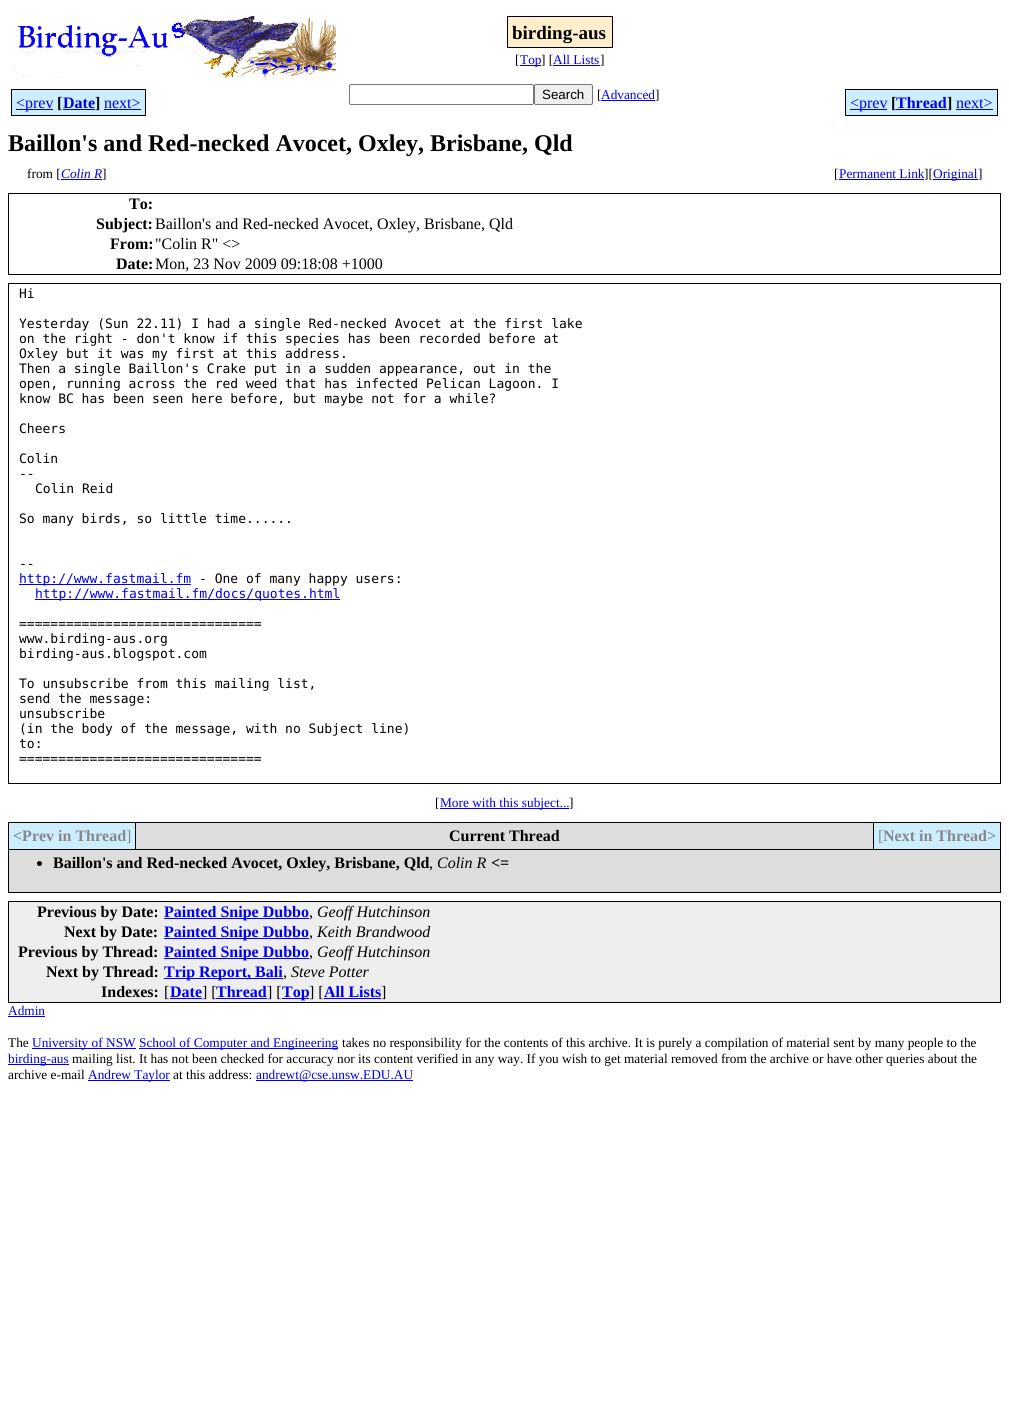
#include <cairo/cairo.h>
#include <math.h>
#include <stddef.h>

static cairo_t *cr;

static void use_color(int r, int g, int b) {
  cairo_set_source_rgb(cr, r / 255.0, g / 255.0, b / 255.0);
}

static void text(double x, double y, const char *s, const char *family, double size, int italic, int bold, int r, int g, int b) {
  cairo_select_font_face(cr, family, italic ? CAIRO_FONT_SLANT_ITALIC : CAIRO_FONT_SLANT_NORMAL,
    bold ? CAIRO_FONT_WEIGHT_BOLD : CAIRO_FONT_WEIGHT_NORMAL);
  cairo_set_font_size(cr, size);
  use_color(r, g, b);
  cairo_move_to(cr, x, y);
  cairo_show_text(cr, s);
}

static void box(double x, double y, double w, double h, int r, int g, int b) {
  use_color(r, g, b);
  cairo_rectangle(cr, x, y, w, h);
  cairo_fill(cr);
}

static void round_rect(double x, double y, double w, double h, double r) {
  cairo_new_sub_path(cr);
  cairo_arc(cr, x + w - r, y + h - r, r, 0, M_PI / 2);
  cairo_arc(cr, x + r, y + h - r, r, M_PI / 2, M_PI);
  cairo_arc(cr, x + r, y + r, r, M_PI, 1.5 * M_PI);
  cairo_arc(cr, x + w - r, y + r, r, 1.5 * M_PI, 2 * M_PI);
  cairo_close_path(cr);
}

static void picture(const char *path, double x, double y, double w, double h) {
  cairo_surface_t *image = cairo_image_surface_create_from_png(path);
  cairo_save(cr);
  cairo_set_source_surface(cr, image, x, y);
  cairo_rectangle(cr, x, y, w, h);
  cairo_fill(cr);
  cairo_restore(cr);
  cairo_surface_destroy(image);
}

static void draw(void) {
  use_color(255, 255, 255);
  cairo_paint(cr);
  picture("img_01.png", 13, 16, 323, 62);
  use_color(255, 238, 204);
  cairo_rectangle(cr, 507.5, 16.5, 105, 31);
  cairo_fill_preserve(cr);
  use_color(0, 0, 0);
  cairo_set_line_width(cr, 1);
  cairo_stroke(cr);
  box(520, 65, 21, 1, 0, 0, 238);
  box(553, 65, 47, 1, 0, 0, 238);
  box(12, 90, 41, 25, 204, 238, 255);
  box(11, 89, 42, 1, 0, 0, 0);
  box(11, 115, 42, 1, 0, 0, 0);
  box(11, 89, 1, 27, 0, 0, 0);
  box(53, 89, 10, 27, 204, 238, 255);
  box(53, 115, 42, 1, 0, 0, 0);
  box(16, 109, 37, 1, 0, 0, 238);
  box(63, 90, 32, 25, 204, 238, 255);
  box(63, 109, 32, 1, 0, 0, 238);
  box(53, 89, 42, 1, 0, 0, 0);
  box(95, 89, 9, 27, 204, 238, 255);
  box(95, 89, 51, 1, 0, 0, 0);
  box(95, 115, 9, 1, 0, 0, 0);
  box(104, 90, 41, 25, 204, 238, 255);
  box(145, 89, 1, 27, 0, 0, 0);
  box(104, 115, 42, 1, 0, 0, 0);
  box(104, 109, 37, 1, 0, 0, 238);
  round_rect(349.5, 84.5, 184, 20, 1.5);
  use_color(118, 118, 118);
  cairo_stroke(cr);
  use_color(239, 239, 239);
  round_rect(534.5, 84.5, 58, 20, 1.5);
  cairo_fill_preserve(cr);
  use_color(118, 118, 118);
  cairo_stroke(cr);
  box(601, 100, 54, 1, 0, 0, 238);
  box(846, 90, 41, 25, 204, 238, 255);
  box(845, 89, 42, 1, 0, 0, 0);
  box(845, 115, 42, 1, 0, 0, 0);
  box(845, 89, 1, 27, 0, 0, 0);
  box(887, 89, 9, 27, 204, 238, 255);
  box(887, 115, 60, 1, 0, 0, 0);
  box(850, 109, 37, 1, 0, 0, 238);
  box(896, 90, 51, 25, 204, 238, 255);
  box(896, 109, 51, 1, 0, 0, 238);
  box(887, 89, 60, 1, 0, 0, 0);
  box(947, 89, 9, 27, 204, 238, 255);
  box(947, 89, 51, 1, 0, 0, 0);
  box(947, 115, 9, 1, 0, 0, 0);
  box(956, 90, 41, 25, 204, 238, 255);
  box(997, 89, 1, 27, 0, 0, 0);
  box(956, 115, 42, 1, 0, 0, 0);
  box(956, 109, 37, 1, 0, 0, 238);
  box(61, 179, 41, 1, 0, 0, 238);
  box(839, 179, 85, 1, 0, 0, 238);
  box(933, 179, 45, 1, 0, 0, 238);
  cairo_rectangle(cr, 8.5, 193.5, 992, 81);
  use_color(0, 0, 0);
  cairo_stroke(cr);
  cairo_rectangle(cr, 8.5, 283.5, 992, 500);
  cairo_stroke(cr);
  box(19, 584, 172, 1, 0, 0, 238);
  box(35, 599, 305, 1, 0, 0, 238);
  box(440, 808, 129, 1, 0, 0, 238);
  box(8, 822, 993, 71, 0, 0, 0);
  box(9, 823, 126, 26, 204, 238, 255);
  box(136, 823, 737, 26, 221, 221, 221);
  box(874, 823, 126, 26, 204, 238, 255);
  box(9, 850, 991, 42, 221, 221, 221);
  use_color(0, 0, 0);
  cairo_arc(cr, 39.5, 863.5, 2.5, 0, 2 * M_PI);
  cairo_fill(cr);
  use_color(238, 238, 238);
  cairo_rectangle(cr, 8.5, 901.5, 992, 101);
  cairo_fill_preserve(cr);
  use_color(0, 0, 0);
  cairo_stroke(cr);
  box(164, 918, 145, 1, 0, 0, 238);
  box(164, 938, 145, 1, 0, 0, 238);
  box(164, 958, 145, 1, 0, 0, 238);
  box(164, 978, 119, 1, 0, 0, 238);
  box(170, 998, 32, 1, 0, 0, 238);
  box(216, 998, 51, 1, 0, 0, 238);
  box(282, 998, 27, 1, 0, 0, 238);
  box(324, 998, 57, 1, 0, 0, 238);
  box(8, 1016, 37, 1, 0, 0, 238);
  box(32, 1048, 104, 1, 0, 0, 238);
  box(139, 1048, 199, 1, 0, 0, 238);
  box(8, 1064, 61, 1, 0, 0, 238);
  box(88, 1080, 82, 1, 0, 0, 238);
  box(256, 1080, 157, 1, 0, 0, 238);
  text(512, 39, "birding-aus", "Liberation Serif", 19, 0, 1, 0, 0, 0);
  text(515, 64, "[", "Liberation Serif", 13.33, 0, 0, 0, 0, 0);
  text(520, 64, "Top", "Liberation Serif", 13.33, 0, 0, 0, 0, 238);
  text(541, 64, "] [", "Liberation Serif", 13.33, 0, 0, 0, 0, 0);
  text(553, 64, "All Lists", "Liberation Serif", 13.33, 0, 0, 0, 0, 238);
  text(600, 64, "]", "Liberation Serif", 13.33, 0, 0, 0, 0, 0);
  text(16, 108, "<prev", "Liberation Serif", 16, 0, 0, 0, 0, 238);
  text(57, 108, "[", "Liberation Serif", 16, 0, 1, 0, 0, 0);
  text(63, 108, "Date", "Liberation Serif", 16, 0, 1, 0, 0, 238);
  text(95, 108, "]", "Liberation Serif", 16, 0, 1, 0, 0, 0);
  text(104, 108, "next>", "Liberation Serif", 16, 0, 0, 0, 0, 238);
  text(542, 99, "Search", "Liberation Sans", 13.33, 0, 0, 0, 0, 0);
  text(597, 99, "[", "Liberation Serif", 13.33, 0, 0, 0, 0, 0);
  text(601, 99, "Advanced", "Liberation Serif", 13.33, 0, 0, 0, 0, 238);
  text(655, 99, "]", "Liberation Serif", 13.33, 0, 0, 0, 0, 0);
  text(850, 108, "<prev", "Liberation Serif", 16, 0, 0, 0, 0, 238);
  text(891, 108, "[", "Liberation Serif", 16, 0, 1, 0, 0, 0);
  text(896, 108, "Thread", "Liberation Serif", 16, 0, 1, 0, 0, 238);
  text(947, 108, "]", "Liberation Serif", 16, 0, 1, 0, 0, 0);
  text(956, 108, "next>", "Liberation Serif", 16, 0, 0, 0, 0, 238);
  text(8, 151, "Baillon's and Red-necked Avocet, Oxley, Brisbane, Qld", "Liberation Serif", 24, 0, 1, 0, 0, 0);
  text(27, 178, "from [", "Liberation Serif", 13.33, 0, 0, 0, 0, 0);
  text(61, 178, "Colin R", "Liberation Serif", 13.33, 1, 0, 0, 0, 238);
  text(102, 178, "]", "Liberation Serif", 13.33, 0, 0, 0, 0, 0);
  text(834, 178, "[", "Liberation Serif", 13.33, 0, 0, 0, 0, 0);
  text(839, 178, "Permanent Link", "Liberation Serif", 13.33, 0, 0, 0, 0, 238);
  text(924, 178, "][", "Liberation Serif", 13.33, 0, 0, 0, 0, 0);
  text(933, 178, "Original", "Liberation Serif", 13.33, 0, 0, 0, 0, 238);
  text(978, 178, "]", "Liberation Serif", 13.33, 0, 0, 0, 0, 0);
  text(129, 209, "To:", "Liberation Serif", 16, 0, 1, 0, 0, 0);
  text(96, 229, "Subject:", "Liberation Serif", 16, 0, 1, 0, 0, 0);
  text(155, 229, "Baillon's and Red-necked Avocet, Oxley, Brisbane, Qld", "Liberation Serif", 16, 0, 0, 0, 0, 0);
  text(110, 249, "From:", "Liberation Serif", 16, 0, 1, 0, 0, 0);
  text(155, 249, "\"Colin R\" <>", "Liberation Serif", 16, 0, 0, 0, 0, 0);
  text(116, 269, "Date:", "Liberation Serif", 16, 0, 1, 0, 0, 0);
  text(155, 269, "Mon, 23 Nov 2009 09:18:08 +1000", "Liberation Serif", 16, 0, 0, 0, 0, 0);
  text(19, 298, "Hi", "DejaVu Sans Mono", 13, 0, 0, 0, 0, 0);
  text(19, 328, "Yesterday (Sun 22.11) I had a single Red-necked Avocet at the first lake", "DejaVu Sans Mono", 13, 0, 0, 0, 0, 0);
  text(19, 343, "on the right - don't know if this species has been recorded before at", "DejaVu Sans Mono", 13, 0, 0, 0, 0, 0);
  text(19, 358, "Oxley but it was my first at this address.", "DejaVu Sans Mono", 13, 0, 0, 0, 0, 0);
  text(19, 373, "Then a single Baillon's Crake put in a sudden appearance, out in the", "DejaVu Sans Mono", 13, 0, 0, 0, 0, 0);
  text(19, 388, "open, running across the red weed that has infected Pelican Lagoon. I", "DejaVu Sans Mono", 13, 0, 0, 0, 0, 0);
  text(19, 403, "know BC has been seen here before, but maybe not for a while?", "DejaVu Sans Mono", 13, 0, 0, 0, 0, 0);
  text(19, 433, "Cheers", "DejaVu Sans Mono", 13, 0, 0, 0, 0, 0);
  text(19, 463, "Colin", "DejaVu Sans Mono", 13, 0, 0, 0, 0, 0);
  text(19, 478, "--", "DejaVu Sans Mono", 13, 0, 0, 0, 0, 0);
  text(35, 493, "Colin Reid", "DejaVu Sans Mono", 13, 0, 0, 0, 0, 0);
  text(19, 523, "So many birds, so little time......", "DejaVu Sans Mono", 13, 0, 0, 0, 0, 0);
  text(19, 568, "--", "DejaVu Sans Mono", 13, 0, 0, 0, 0, 0);
  text(19, 583, "http://www.fastmail.fm", "DejaVu Sans Mono", 13, 0, 0, 0, 0, 238);
  text(199, 583, "- One of many happy users:", "DejaVu Sans Mono", 13, 0, 0, 0, 0, 0);
  text(35, 598, "http://www.fastmail.fm/docs/quotes.html", "DejaVu Sans Mono", 13, 0, 0, 0, 0, 238);
  text(19, 628, "===============================", "DejaVu Sans Mono", 13, 0, 0, 0, 0, 0);
  text(19, 643, "www.birding-aus.org", "DejaVu Sans Mono", 13, 0, 0, 0, 0, 0);
  text(19, 658, "birding-aus.blogspot.com", "DejaVu Sans Mono", 13, 0, 0, 0, 0, 0);
  text(19, 688, "To unsubscribe from this mailing list,", "DejaVu Sans Mono", 13, 0, 0, 0, 0, 0);
  text(19, 703, "send the message:", "DejaVu Sans Mono", 13, 0, 0, 0, 0, 0);
  text(19, 718, "unsubscribe", "DejaVu Sans Mono", 13, 0, 0, 0, 0, 0);
  text(19, 733, "(in the body of the message, with no Subject line)", "DejaVu Sans Mono", 13, 0, 0, 0, 0, 0);
  text(19, 748, "to:", "DejaVu Sans Mono", 13, 0, 0, 0, 0, 0);
  text(19, 763, "===============================", "DejaVu Sans Mono", 13, 0, 0, 0, 0, 0);
  text(435, 807, "[", "Liberation Serif", 13.33, 0, 0, 0, 0, 0);
  text(440, 807, "More with this subject...", "Liberation Serif", 13.33, 0, 0, 0, 0, 238);
  text(569, 807, "]", "Liberation Serif", 13.33, 0, 0, 0, 0, 0);
  text(13, 841, "<Prev in Thread", "Liberation Serif", 16, 0, 1, 136, 136, 136);
  text(126, 841, "]", "Liberation Serif", 16, 0, 0, 136, 136, 136);
  text(449, 841, "Current Thread", "Liberation Serif", 16, 0, 1, 0, 0, 0);
  text(878, 841, "[", "Liberation Serif", 16, 0, 0, 136, 136, 136);
  text(883, 841, "Next in Thread>", "Liberation Serif", 16, 0, 1, 136, 136, 136);
  text(53, 868, "Baillon's and Red-necked Avocet, Oxley, Brisbane, Qld", "Liberation Serif", 16, 0, 1, 0, 0, 0);
  text(437, 868, "Colin R", "Liberation Serif", 16, 1, 0, 0, 0, 0);
  text(491, 868, "<=", "Liberation Serif", 16, 0, 1, 0, 0, 0);
  text(429, 868, ",", "Liberation Serif", 16, 0, 0, 0, 0, 0);
  text(37, 917, "Previous by Date:", "Liberation Serif", 16, 0, 1, 0, 0, 0);
  text(164, 917, "Painted Snipe Dubbo", "Liberation Serif", 16, 0, 1, 0, 0, 238);
  text(309, 917, ",", "Liberation Serif", 16, 0, 0, 0, 0, 0);
  text(317, 917, "Geoff Hutchinson", "Liberation Serif", 16, 1, 0, 0, 0, 0);
  text(64, 937, "Next by Date:", "Liberation Serif", 16, 0, 1, 0, 0, 0);
  text(164, 937, "Painted Snipe Dubbo", "Liberation Serif", 16, 0, 1, 0, 0, 238);
  text(309, 937, ",", "Liberation Serif", 16, 0, 0, 0, 0, 0);
  text(317, 937, "Keith Brandwood", "Liberation Serif", 16, 1, 0, 0, 0, 0);
  text(18, 957, "Previous by Thread:", "Liberation Serif", 16, 0, 1, 0, 0, 0);
  text(164, 957, "Painted Snipe Dubbo", "Liberation Serif", 16, 0, 1, 0, 0, 238);
  text(309, 957, ",", "Liberation Serif", 16, 0, 0, 0, 0, 0);
  text(317, 957, "Geoff Hutchinson", "Liberation Serif", 16, 1, 0, 0, 0, 0);
  text(46, 977, "Next by Thread:", "Liberation Serif", 16, 0, 1, 0, 0, 0);
  text(164, 977, "Trip Report, Bali", "Liberation Serif", 16, 0, 1, 0, 0, 238);
  text(283, 977, ",", "Liberation Serif", 16, 0, 0, 0, 0, 0);
  text(291, 977, "Steve Potter", "Liberation Serif", 16, 1, 0, 0, 0, 0);
  text(101, 997, "Indexes:", "Liberation Serif", 16, 0, 1, 0, 0, 0);
  text(164, 997, "[", "Liberation Serif", 16, 0, 0, 0, 0, 0);
  text(170, 997, "Date", "Liberation Serif", 16, 0, 1, 0, 0, 238);
  text(202, 997, "] [", "Liberation Serif", 16, 0, 0, 0, 0, 0);
  text(216, 997, "Thread", "Liberation Serif", 16, 0, 1, 0, 0, 238);
  text(267, 997, "] [", "Liberation Serif", 16, 0, 0, 0, 0, 0);
  text(282, 997, "Top", "Liberation Serif", 16, 0, 1, 0, 0, 238);
  text(309, 997, "] [", "Liberation Serif", 16, 0, 0, 0, 0, 0);
  text(324, 997, "All Lists", "Liberation Serif", 16, 0, 1, 0, 0, 238);
  text(381, 997, "]", "Liberation Serif", 16, 0, 0, 0, 0, 0);
  text(8, 1015, "Admin", "Liberation Serif", 13.33, 0, 0, 0, 0, 238);
  text(8, 1047, "The", "Liberation Serif", 13.33, 0, 0, 0, 0, 0);
  text(32, 1047, "University of NSW", "Liberation Serif", 13.33, 0, 0, 0, 0, 238);
  text(139, 1047, "School of Computer and Engineering", "Liberation Serif", 13.33, 0, 0, 0, 0, 238);
  text(342, 1047, "takes no responsibility for the contents of this archive. It is purely a compilation of material sent by many people to the", "Liberation Serif", 13.33, 0, 0, 0, 0, 0);
  text(8, 1063, "birding-aus", "Liberation Serif", 13.33, 0, 0, 0, 0, 238);
  text(72, 1063, "mailing list. It has not been checked for accuracy nor its content verified in any way. If you wish to get material removed from the archive or have other queries about the", "Liberation Serif", 13.33, 0, 0, 0, 0, 0);
  text(8, 1079, "archive e-mail", "Liberation Serif", 13.33, 0, 0, 0, 0, 0);
  text(88, 1079, "Andrew Taylor", "Liberation Serif", 13.33, 0, 0, 0, 0, 238);
  text(173, 1079, "at this address:", "Liberation Serif", 13.33, 0, 0, 0, 0, 0);
  text(256, 1079, "andrewt@cse.unsw.EDU.AU", "Liberation Serif", 13.33, 0, 0, 0, 0, 238);
}

int main(void) {
  cairo_surface_t *surface = cairo_image_surface_create(CAIRO_FORMAT_RGB24, 1009, 1420);
  cr = cairo_create(surface);
  cairo_font_options_t *options = cairo_font_options_create();
  cairo_font_options_set_hint_metrics(options, CAIRO_HINT_METRICS_OFF);
  cairo_font_options_set_hint_style(options, CAIRO_HINT_STYLE_NONE);
  cairo_set_font_options(cr, options);
  cairo_set_miter_limit(cr, 4);
  draw();
  cairo_surface_write_to_png(surface, "out.png");
  cairo_font_options_destroy(options);
  cairo_destroy(cr);
  cairo_surface_destroy(surface);
  return 0;
}
